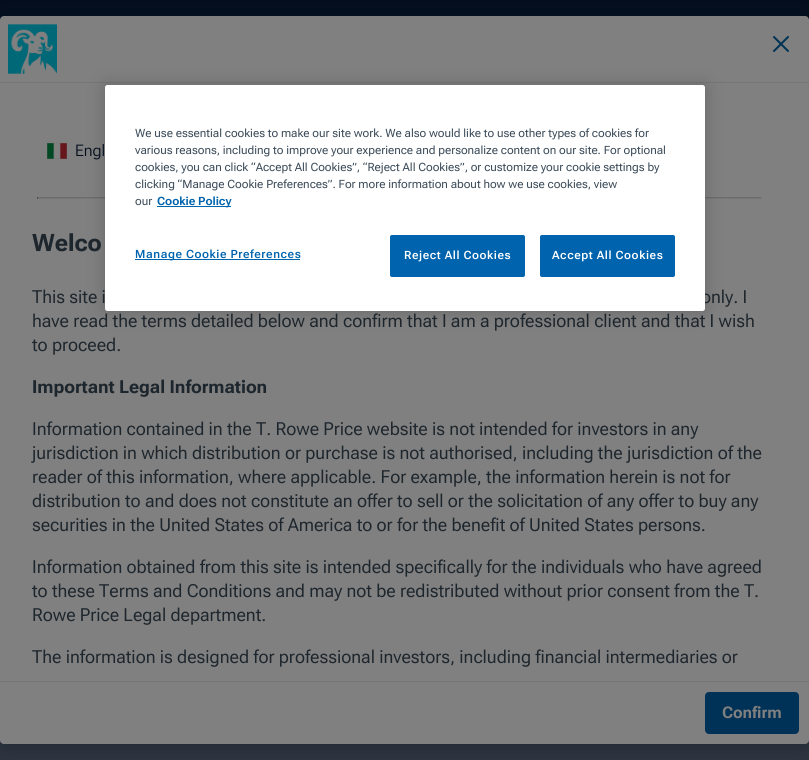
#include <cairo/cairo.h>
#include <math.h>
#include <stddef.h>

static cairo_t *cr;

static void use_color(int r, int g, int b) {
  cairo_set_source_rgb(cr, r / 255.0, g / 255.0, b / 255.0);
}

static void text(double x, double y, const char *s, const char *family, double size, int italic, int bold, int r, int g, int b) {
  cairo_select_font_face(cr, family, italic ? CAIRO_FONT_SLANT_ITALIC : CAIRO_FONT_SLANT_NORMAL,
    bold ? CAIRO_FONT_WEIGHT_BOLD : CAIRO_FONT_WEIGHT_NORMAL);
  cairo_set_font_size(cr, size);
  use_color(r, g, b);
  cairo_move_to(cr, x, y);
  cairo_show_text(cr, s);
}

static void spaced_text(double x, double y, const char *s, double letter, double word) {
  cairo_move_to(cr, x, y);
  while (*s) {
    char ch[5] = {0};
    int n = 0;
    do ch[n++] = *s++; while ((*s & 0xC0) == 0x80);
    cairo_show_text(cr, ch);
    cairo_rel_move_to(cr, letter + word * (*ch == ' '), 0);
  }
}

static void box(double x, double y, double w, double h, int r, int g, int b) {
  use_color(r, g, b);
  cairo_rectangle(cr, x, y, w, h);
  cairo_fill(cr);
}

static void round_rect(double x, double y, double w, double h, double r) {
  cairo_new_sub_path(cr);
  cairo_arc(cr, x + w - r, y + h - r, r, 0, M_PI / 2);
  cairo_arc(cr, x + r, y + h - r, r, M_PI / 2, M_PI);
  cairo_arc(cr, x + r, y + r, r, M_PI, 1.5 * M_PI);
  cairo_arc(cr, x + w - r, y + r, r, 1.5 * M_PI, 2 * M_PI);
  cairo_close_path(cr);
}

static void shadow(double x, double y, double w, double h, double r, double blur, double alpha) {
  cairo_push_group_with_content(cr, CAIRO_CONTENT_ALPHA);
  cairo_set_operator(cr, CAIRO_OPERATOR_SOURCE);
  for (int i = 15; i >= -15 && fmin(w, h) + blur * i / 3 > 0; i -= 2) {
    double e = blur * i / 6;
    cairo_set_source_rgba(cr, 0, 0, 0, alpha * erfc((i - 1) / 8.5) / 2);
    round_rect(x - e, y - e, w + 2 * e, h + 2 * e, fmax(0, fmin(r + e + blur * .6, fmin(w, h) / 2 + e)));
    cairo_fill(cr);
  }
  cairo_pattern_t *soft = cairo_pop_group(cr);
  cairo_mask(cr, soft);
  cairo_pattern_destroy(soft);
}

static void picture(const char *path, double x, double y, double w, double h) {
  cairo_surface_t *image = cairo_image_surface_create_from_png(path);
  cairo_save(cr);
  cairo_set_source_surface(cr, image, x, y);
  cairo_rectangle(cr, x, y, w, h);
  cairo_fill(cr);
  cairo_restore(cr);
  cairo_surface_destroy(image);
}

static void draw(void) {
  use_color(48, 54, 64);
  cairo_paint(cr);
  box(0, 0, 809, 20, 3, 13, 28);
  use_color(6, 21, 39);
  shadow(0, 16, 809, 728, 4, 12, 0.56);
  use_color(128, 128, 128);
  round_rect(0, 16, 809, 728, 4);
  cairo_fill(cr);
  box(0, 82, 809, 1, 117, 118, 119);
  box(37, 197, 725, 1, 106, 108, 109);
  box(761, 197, 1, 2, 119, 119, 119);
  box(37, 198, 725, 1, 119, 119, 119);
  use_color(0, 0, 0);
  shadow(105, 85, 600, 226, 2.5, 9, 0.2);
  picture("img_01.png", 8, 24, 49, 50);
  picture("img_02.png", 773, 36, 16, 16);
  picture("img_03.png", 47, 143, 20, 16);
  box(37, 197, 1, 2, 80, 80, 80);
  box(0, 681, 809, 1, 117, 118, 119);
  use_color(0, 50, 87);
  round_rect(705.5, 692.5, 93, 41, 3.5);
  cairo_fill_preserve(cr);
  cairo_set_line_width(cr, 1);
  cairo_stroke(cr);
  text(75, 156, "Engl", "Roboto Flex Light", 16, 0, 0, 3, 13, 28);
  text(32, 251, "Welco", "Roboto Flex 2", 24, 0, 1, 30, 38, 45);
  text(32, 303, "This site i", "Roboto Flex", 18, 0, 0, 30, 38, 45);
  text(701, 303, "only. I", "Roboto Flex", 18, 0, 0, 30, 38, 45);
  use_color(255, 255, 255);
  round_rect(105, 85, 600, 226, 2.5);
  cairo_fill(cr);
  use_color(0, 99, 173);
  round_rect(540.5, 235.5, 134, 41, 1.5);
  cairo_fill_preserve(cr);
  cairo_stroke(cr);
  cairo_select_font_face(cr, "Roboto Flex SemiBold", CAIRO_FONT_SLANT_NORMAL, CAIRO_FONT_WEIGHT_NORMAL);
  cairo_set_font_size(cr, 11.4);
  use_color(255, 255, 255);
  spaced_text(552, 259, "Accept All Cookies", 0.6, 0);
  use_color(0, 99, 173);
  round_rect(390.5, 235.5, 134, 41, 1.5);
  cairo_fill_preserve(cr);
  cairo_stroke(cr);
  use_color(255, 255, 255);
  spaced_text(404, 259, "Reject All Cookies", 0.6, 0);
  box(135, 259, 165, 1, 0, 99, 173);
  spaced_text(135, 258, "Manage Cookie Preferences", 0.6, 0);
  box(157, 206, 74, 1, 0, 99, 173);
  text(157, 205, "Cookie Policy", "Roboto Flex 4", 11.4, 0, 1, 0, 99, 173);
  text(135, 205, "our", "Roboto Flex 2", 11.4, 0, 0, 59, 75, 89);
  text(135, 188, "clicking “Manage Cookie Preferences”. For more information about how we use cookies, view", "Roboto Flex 2", 11.4, 0, 0, 59, 75, 89);
  text(135, 171, "cookies, you can click “Accept All Cookies”, “Reject All Cookies”, or customize your cookie settings by", "Roboto Flex 2", 11.4, 0, 0, 59, 75, 89);
  text(135, 154, "various reasons, including to improve your experience and personalize content on our site. For optional", "Roboto Flex 2", 11.4, 0, 0, 59, 75, 89);
  text(135, 137, "We use essential cookies to make our site work. We also would like to use other types of cookies for", "Roboto Flex 2", 11.4, 0, 0, 59, 75, 89);
  text(32, 327, "have read the terms detailed below and confirm that I am a professional client and that I wish", "Roboto Flex", 18, 0, 0, 30, 38, 45);
  text(32, 351, "to proceed.", "Roboto Flex", 18, 0, 0, 30, 38, 45);
  text(32, 393, "Important Legal Information", "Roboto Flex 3", 18, 0, 1, 30, 38, 45);
  text(32, 435, "Information contained in the T. Rowe Price website is not intended for investors in any", "Roboto Flex", 18, 0, 0, 30, 38, 45);
  text(32, 459, "jurisdiction in which distribution or purchase is not authorised, including the jurisdiction of the", "Roboto Flex", 18, 0, 0, 30, 38, 45);
  text(32, 483, "reader of this information, where applicable. For example, the information herein is not for", "Roboto Flex", 18, 0, 0, 30, 38, 45);
  text(32, 507, "distribution to and does not constitute an offer to sell or the solicitation of any offer to buy any", "Roboto Flex", 18, 0, 0, 30, 38, 45);
  text(32, 531, "securities in the United States of America to or for the benefit of United States persons.", "Roboto Flex", 18, 0, 0, 30, 38, 45);
  text(32, 573, "Information obtained from this site is intended specifically for the individuals who have agreed", "Roboto Flex", 18, 0, 0, 30, 38, 45);
  text(32, 597, "to these Terms and Conditions and may not be redistributed without prior consent from the T.", "Roboto Flex", 18, 0, 0, 30, 38, 45);
  text(32, 621, "Rowe Price Legal department.", "Roboto Flex", 18, 0, 0, 30, 38, 45);
  text(32, 663, "The information is designed for professional investors, including financial intermediaries or", "Roboto Flex", 18, 0, 0, 30, 38, 45);
  text(722, 718, "Confirm", "Roboto Flex", 16, 0, 1, 128, 128, 128);
}

int main(void) {
  cairo_surface_t *surface = cairo_image_surface_create(CAIRO_FORMAT_RGB24, 809, 760);
  cr = cairo_create(surface);
  cairo_font_options_t *options = cairo_font_options_create();
  cairo_font_options_set_hint_metrics(options, CAIRO_HINT_METRICS_OFF);
  cairo_font_options_set_hint_style(options, CAIRO_HINT_STYLE_NONE);
  cairo_set_font_options(cr, options);
  cairo_set_miter_limit(cr, 4);
  draw();
  cairo_surface_write_to_png(surface, "out.png");
  cairo_font_options_destroy(options);
  cairo_destroy(cr);
  cairo_surface_destroy(surface);
  return 0;
}
